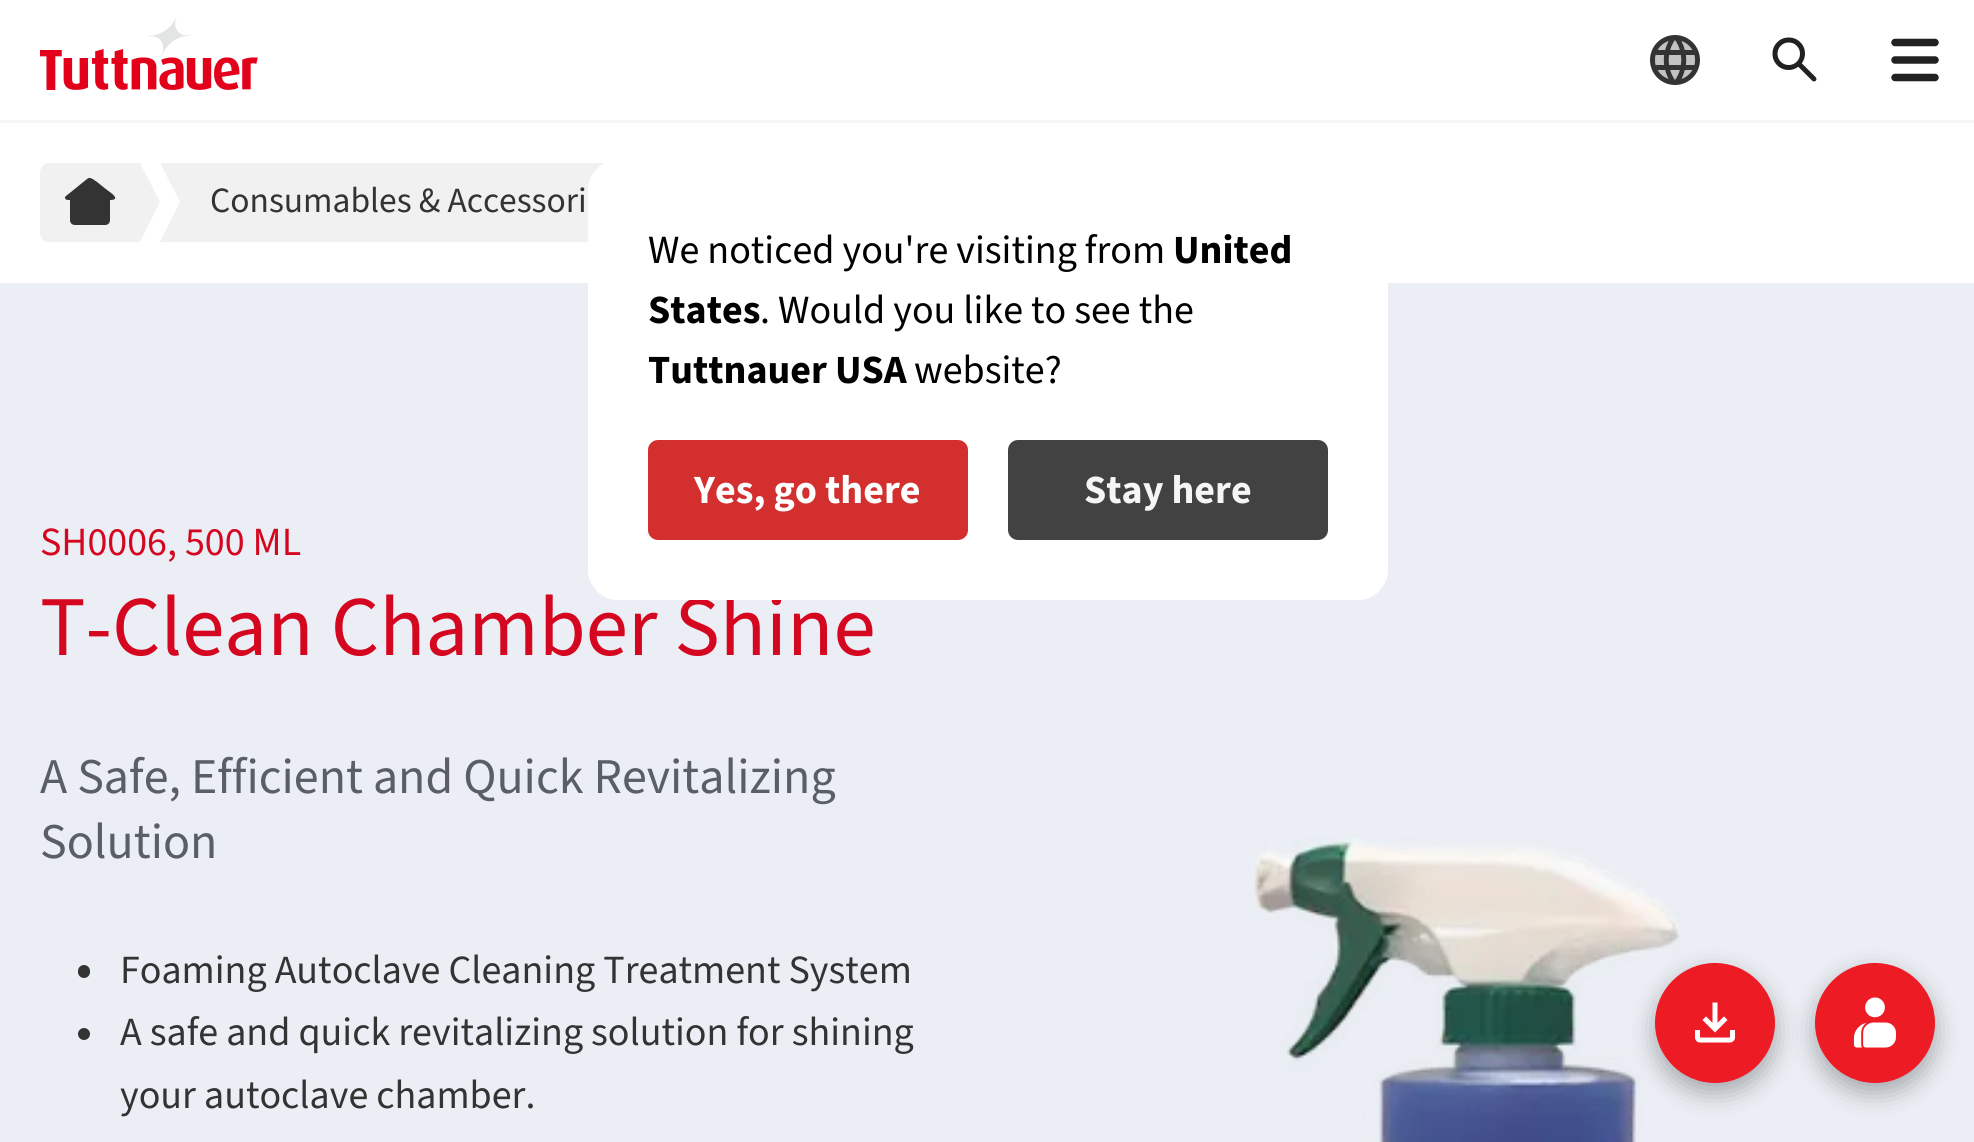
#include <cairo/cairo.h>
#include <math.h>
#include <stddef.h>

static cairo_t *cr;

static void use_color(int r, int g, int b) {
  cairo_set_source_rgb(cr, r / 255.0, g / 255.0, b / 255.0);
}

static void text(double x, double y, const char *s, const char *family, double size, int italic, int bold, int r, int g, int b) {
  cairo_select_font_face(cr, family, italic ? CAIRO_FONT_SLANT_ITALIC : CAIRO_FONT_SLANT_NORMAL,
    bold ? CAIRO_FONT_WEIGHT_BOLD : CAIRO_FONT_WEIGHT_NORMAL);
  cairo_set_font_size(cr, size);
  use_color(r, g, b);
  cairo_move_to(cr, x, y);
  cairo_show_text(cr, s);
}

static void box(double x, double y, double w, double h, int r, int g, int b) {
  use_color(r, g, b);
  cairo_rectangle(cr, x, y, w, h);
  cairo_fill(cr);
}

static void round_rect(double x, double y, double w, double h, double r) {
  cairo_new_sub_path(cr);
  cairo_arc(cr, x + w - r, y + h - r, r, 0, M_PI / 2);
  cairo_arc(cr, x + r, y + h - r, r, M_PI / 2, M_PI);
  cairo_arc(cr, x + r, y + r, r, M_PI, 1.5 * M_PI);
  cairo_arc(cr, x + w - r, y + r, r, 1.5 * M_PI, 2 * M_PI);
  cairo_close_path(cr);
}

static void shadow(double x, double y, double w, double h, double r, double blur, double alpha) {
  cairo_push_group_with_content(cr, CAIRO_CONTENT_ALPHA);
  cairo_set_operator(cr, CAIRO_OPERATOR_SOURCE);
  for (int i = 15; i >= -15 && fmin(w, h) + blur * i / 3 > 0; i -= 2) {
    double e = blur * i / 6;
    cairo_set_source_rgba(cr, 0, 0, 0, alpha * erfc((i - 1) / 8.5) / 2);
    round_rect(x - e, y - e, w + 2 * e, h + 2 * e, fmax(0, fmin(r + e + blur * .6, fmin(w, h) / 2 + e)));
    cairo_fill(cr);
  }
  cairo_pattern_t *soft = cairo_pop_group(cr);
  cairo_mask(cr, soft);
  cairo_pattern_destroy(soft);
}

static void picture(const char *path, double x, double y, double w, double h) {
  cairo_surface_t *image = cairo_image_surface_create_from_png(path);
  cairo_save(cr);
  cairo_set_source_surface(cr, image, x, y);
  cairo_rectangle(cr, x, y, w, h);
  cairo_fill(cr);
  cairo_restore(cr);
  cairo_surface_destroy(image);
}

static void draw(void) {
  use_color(255, 255, 255);
  cairo_paint(cr);
  box(0, 120, 1974, 3, 246, 246, 246);
  use_color(241, 241, 242);
  cairo_new_path(cr);
  cairo_move_to(cr, 50, 163);
  cairo_curve_to(cr, 44, 163, 40, 167, 40, 173);
  cairo_line_to(cr, 40, 233);
  cairo_curve_to(cr, 40, 237, 43, 241, 47, 242);
  cairo_line_to(cr, 140, 242);
  cairo_line_to(cr, 160, 202);
  cairo_line_to(cr, 140, 163);
  cairo_close_path(cr);
  cairo_fill(cr);
  use_color(51, 51, 51);
  cairo_set_fill_rule(cr, CAIRO_FILL_RULE_EVEN_ODD);
  cairo_new_path(cr);
  cairo_move_to(cr, 87, 179);
  cairo_curve_to(cr, 90, 176, 94, 180, 97, 182);
  cairo_line_to(cr, 107, 190);
  cairo_curve_to(cr, 110, 192, 122, 200, 110, 200);
  cairo_line_to(cr, 110, 220);
  cairo_curve_to(cr, 110, 223, 108, 225, 105, 225);
  cairo_line_to(cr, 75, 225);
  cairo_curve_to(cr, 72, 225, 70, 223, 70, 220);
  cairo_line_to(cr, 70, 200);
  cairo_line_to(cr, 68, 200);
  cairo_curve_to(cr, 65, 200, 64, 197, 66, 196);
  cairo_close_path(cr);
  cairo_fill(cr);
  use_color(241, 241, 242);
  cairo_set_fill_rule(cr, CAIRO_FILL_RULE_WINDING);
  cairo_new_path(cr);
  cairo_move_to(cr, 650, 163);
  cairo_line_to(cr, 670, 202);
  cairo_line_to(cr, 650, 242);
  cairo_line_to(cr, 160, 242);
  cairo_line_to(cr, 180, 202);
  cairo_line_to(cr, 160, 163);
  cairo_close_path(cr);
  cairo_fill(cr);
  box(0, 283, 1974, 859, 235, 239, 245);
  use_color(51, 51, 51);
  round_rect(78, 965, 12, 13, 6);
  cairo_fill(cr);
  cairo_arc(cr, 84, 1034, 6, 0, 2 * M_PI);
  cairo_fill(cr);
  picture("img_01.png", 1253, 835, 429, 307);
  picture("img_02.png", 40, 15, 218, 75);
  picture("img_03.png", 1650, 35, 50, 50);
  picture("img_04.png", 1772, 37, 45, 45);
  picture("img_05.png", 1891, 38, 48, 44);
  use_color(0, 0, 0);
  shadow(1655, 973, 120, 120, 60, 12.5, 0.3);
  use_color(237, 28, 36);
  cairo_arc(cr, 1715, 1023, 60, 0, 2 * M_PI);
  cairo_fill(cr);
  picture("img_06.png", 1695, 1002, 40, 41);
  use_color(0, 0, 0);
  shadow(1815, 973, 120, 120, 60, 12.5, 0.3);
  use_color(237, 28, 36);
  cairo_arc(cr, 1875, 1023, 60, 0, 2 * M_PI);
  cairo_fill(cr);
  picture("img_07.png", 1853, 997, 43, 51);
  text(210, 212, "Consumables & Accessori", "Source Sans 3", 35.5, 0, 0, 51, 51, 51);
  text(40, 555, "SH0006, 500 ML", "Source Sans 3", 40, 0, 0, 213, 7, 32);
  text(40, 655, "T-Clean Chamber Shine", "Source Sans 3", 85, 0, 0, 213, 7, 32);
  text(40, 793, "A Safe, Efficient and Quick Revitalizing", "Source Sans 3", 50, 0, 0, 90, 94, 103);
  text(40, 858, "Solution", "Source Sans 3", 50, 0, 0, 90, 94, 103);
  text(120, 983, "Foaming Autoclave Cleaning Treatment System", "Source Sans 3", 40, 0, 0, 51, 51, 51);
  text(120, 1045, "A safe and quick revitalizing solution for shining", "Source Sans 3", 40, 0, 0, 51, 51, 51);
  text(120, 1108, "your autoclave chamber.", "Source Sans 3", 40, 0, 0, 51, 51, 51);
  use_color(255, 255, 255);
  round_rect(588, 160, 800, 440, 30);
  cairo_fill(cr);
  text(648, 263, "We noticed you're visiting from", "Source Sans 3", 40, 0, 0, 0, 0, 0);
  text(1173, 263, "United", "Source Sans 3", 40, 0, 1, 0, 0, 0);
  text(648, 323, "States", "Source Sans 3", 40, 0, 1, 0, 0, 0);
  text(760, 323, ". Would you like to see the", "Source Sans 3", 40, 0, 0, 0, 0, 0);
  text(648, 383, "Tuttnauer USA", "Source Sans 3", 40, 0, 1, 0, 0, 0);
  text(914, 383, "website?", "Source Sans 3", 40, 0, 0, 0, 0, 0);
  use_color(211, 47, 47);
  round_rect(648, 440, 320, 100, 10);
  cairo_fill(cr);
  text(694, 503, "Yes, go there", "Source Sans 3", 40, 0, 1, 255, 255, 255);
  use_color(66, 66, 66);
  round_rect(1008, 440, 320, 100, 10);
  cairo_fill(cr);
  text(1084, 503, "Stay here", "Source Sans 3", 40, 0, 1, 245, 245, 245);
}

int main(void) {
  cairo_surface_t *surface = cairo_image_surface_create(CAIRO_FORMAT_RGB24, 1974, 1142);
  cr = cairo_create(surface);
  cairo_font_options_t *options = cairo_font_options_create();
  cairo_font_options_set_hint_metrics(options, CAIRO_HINT_METRICS_OFF);
  cairo_font_options_set_hint_style(options, CAIRO_HINT_STYLE_NONE);
  cairo_set_font_options(cr, options);
  cairo_set_miter_limit(cr, 4);
  draw();
  cairo_surface_write_to_png(surface, "out.png");
  cairo_font_options_destroy(options);
  cairo_destroy(cr);
  cairo_surface_destroy(surface);
  return 0;
}
